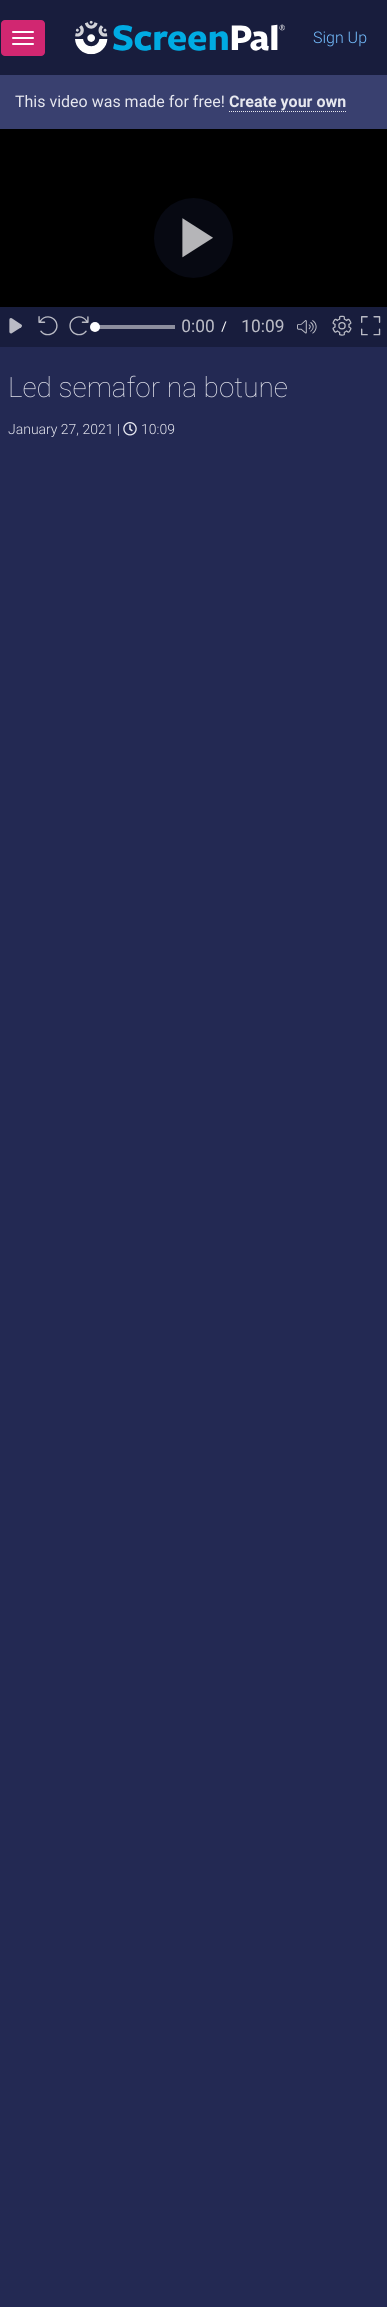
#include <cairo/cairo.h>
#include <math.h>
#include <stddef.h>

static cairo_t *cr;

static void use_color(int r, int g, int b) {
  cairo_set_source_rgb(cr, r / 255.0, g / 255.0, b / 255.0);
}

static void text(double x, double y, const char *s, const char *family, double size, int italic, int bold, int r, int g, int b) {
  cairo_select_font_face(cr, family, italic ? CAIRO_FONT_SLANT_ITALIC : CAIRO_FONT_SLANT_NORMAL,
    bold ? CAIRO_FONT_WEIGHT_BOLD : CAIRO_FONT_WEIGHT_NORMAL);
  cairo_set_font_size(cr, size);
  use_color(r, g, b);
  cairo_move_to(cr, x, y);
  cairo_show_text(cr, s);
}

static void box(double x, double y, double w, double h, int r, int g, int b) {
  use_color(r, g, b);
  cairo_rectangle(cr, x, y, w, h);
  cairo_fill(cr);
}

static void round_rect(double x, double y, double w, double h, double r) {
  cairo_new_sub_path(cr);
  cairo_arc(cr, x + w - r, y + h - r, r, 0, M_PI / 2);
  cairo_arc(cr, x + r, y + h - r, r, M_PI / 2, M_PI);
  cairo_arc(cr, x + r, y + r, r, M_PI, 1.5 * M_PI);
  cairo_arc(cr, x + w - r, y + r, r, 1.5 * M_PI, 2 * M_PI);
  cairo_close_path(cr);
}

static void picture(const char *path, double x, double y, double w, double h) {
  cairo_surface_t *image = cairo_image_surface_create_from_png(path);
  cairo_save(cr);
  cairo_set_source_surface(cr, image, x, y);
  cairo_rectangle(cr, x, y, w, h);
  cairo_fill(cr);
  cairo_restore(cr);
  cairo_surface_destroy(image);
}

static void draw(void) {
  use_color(35, 41, 83);
  cairo_paint(cr);
  box(0, 0, 387, 75, 24, 29, 61);
  use_color(209, 39, 113);
  round_rect(1, 20, 44, 36, 4);
  cairo_fill(cr);
  use_color(255, 255, 255);
  round_rect(12, 31, 22, 2, 1);
  cairo_fill(cr);
  round_rect(12, 37, 22, 2, 1);
  cairo_fill(cr);
  round_rect(12, 43, 22, 2, 1);
  cairo_fill(cr);
  picture("img_01.png", 75, 20, 210, 35);
  box(0, 75, 387, 54, 57, 64, 111);
  cairo_new_path(cr);
  cairo_move_to(cr, 229, 111.5);
  cairo_line_to(cr, 346, 111.5);
  use_color(230, 231, 239);
  cairo_set_line_width(cr, 1);
  cairo_set_dash(cr, (double[]){1, 1}, 2, 0);
  cairo_stroke(cr);
  picture("img_02.png", 0, 129, 387, 218);
  picture("img_03.png", 123, 422, 14, 14);
  text(313, 43, "Sign Up", "Roboto Light", 16, 0, 0, 116, 190, 255);
  text(15, 107, "This video was made for free!", "Roboto", 16, 0, 0, 230, 231, 239);
  text(229, 107, "Create your own", "Roboto", 16, 0, 1, 230, 231, 239);
  text(8, 397, "Led semafor na botune", "Roboto Thin", 28, 0, 0, 230, 231, 239);
  text(8, 434, "January 27, 2021 |", "Roboto Light", 14, 0, 0, 230, 231, 239);
  text(141, 434, "10:09", "Roboto Light", 14, 0, 0, 230, 231, 239);
}

int main(void) {
  cairo_surface_t *surface = cairo_image_surface_create(CAIRO_FORMAT_RGB24, 387, 2307);
  cr = cairo_create(surface);
  cairo_font_options_t *options = cairo_font_options_create();
  cairo_font_options_set_hint_metrics(options, CAIRO_HINT_METRICS_OFF);
  cairo_font_options_set_hint_style(options, CAIRO_HINT_STYLE_NONE);
  cairo_set_font_options(cr, options);
  cairo_set_miter_limit(cr, 4);
  draw();
  cairo_surface_write_to_png(surface, "out.png");
  cairo_font_options_destroy(options);
  cairo_destroy(cr);
  cairo_surface_destroy(surface);
  return 0;
}
